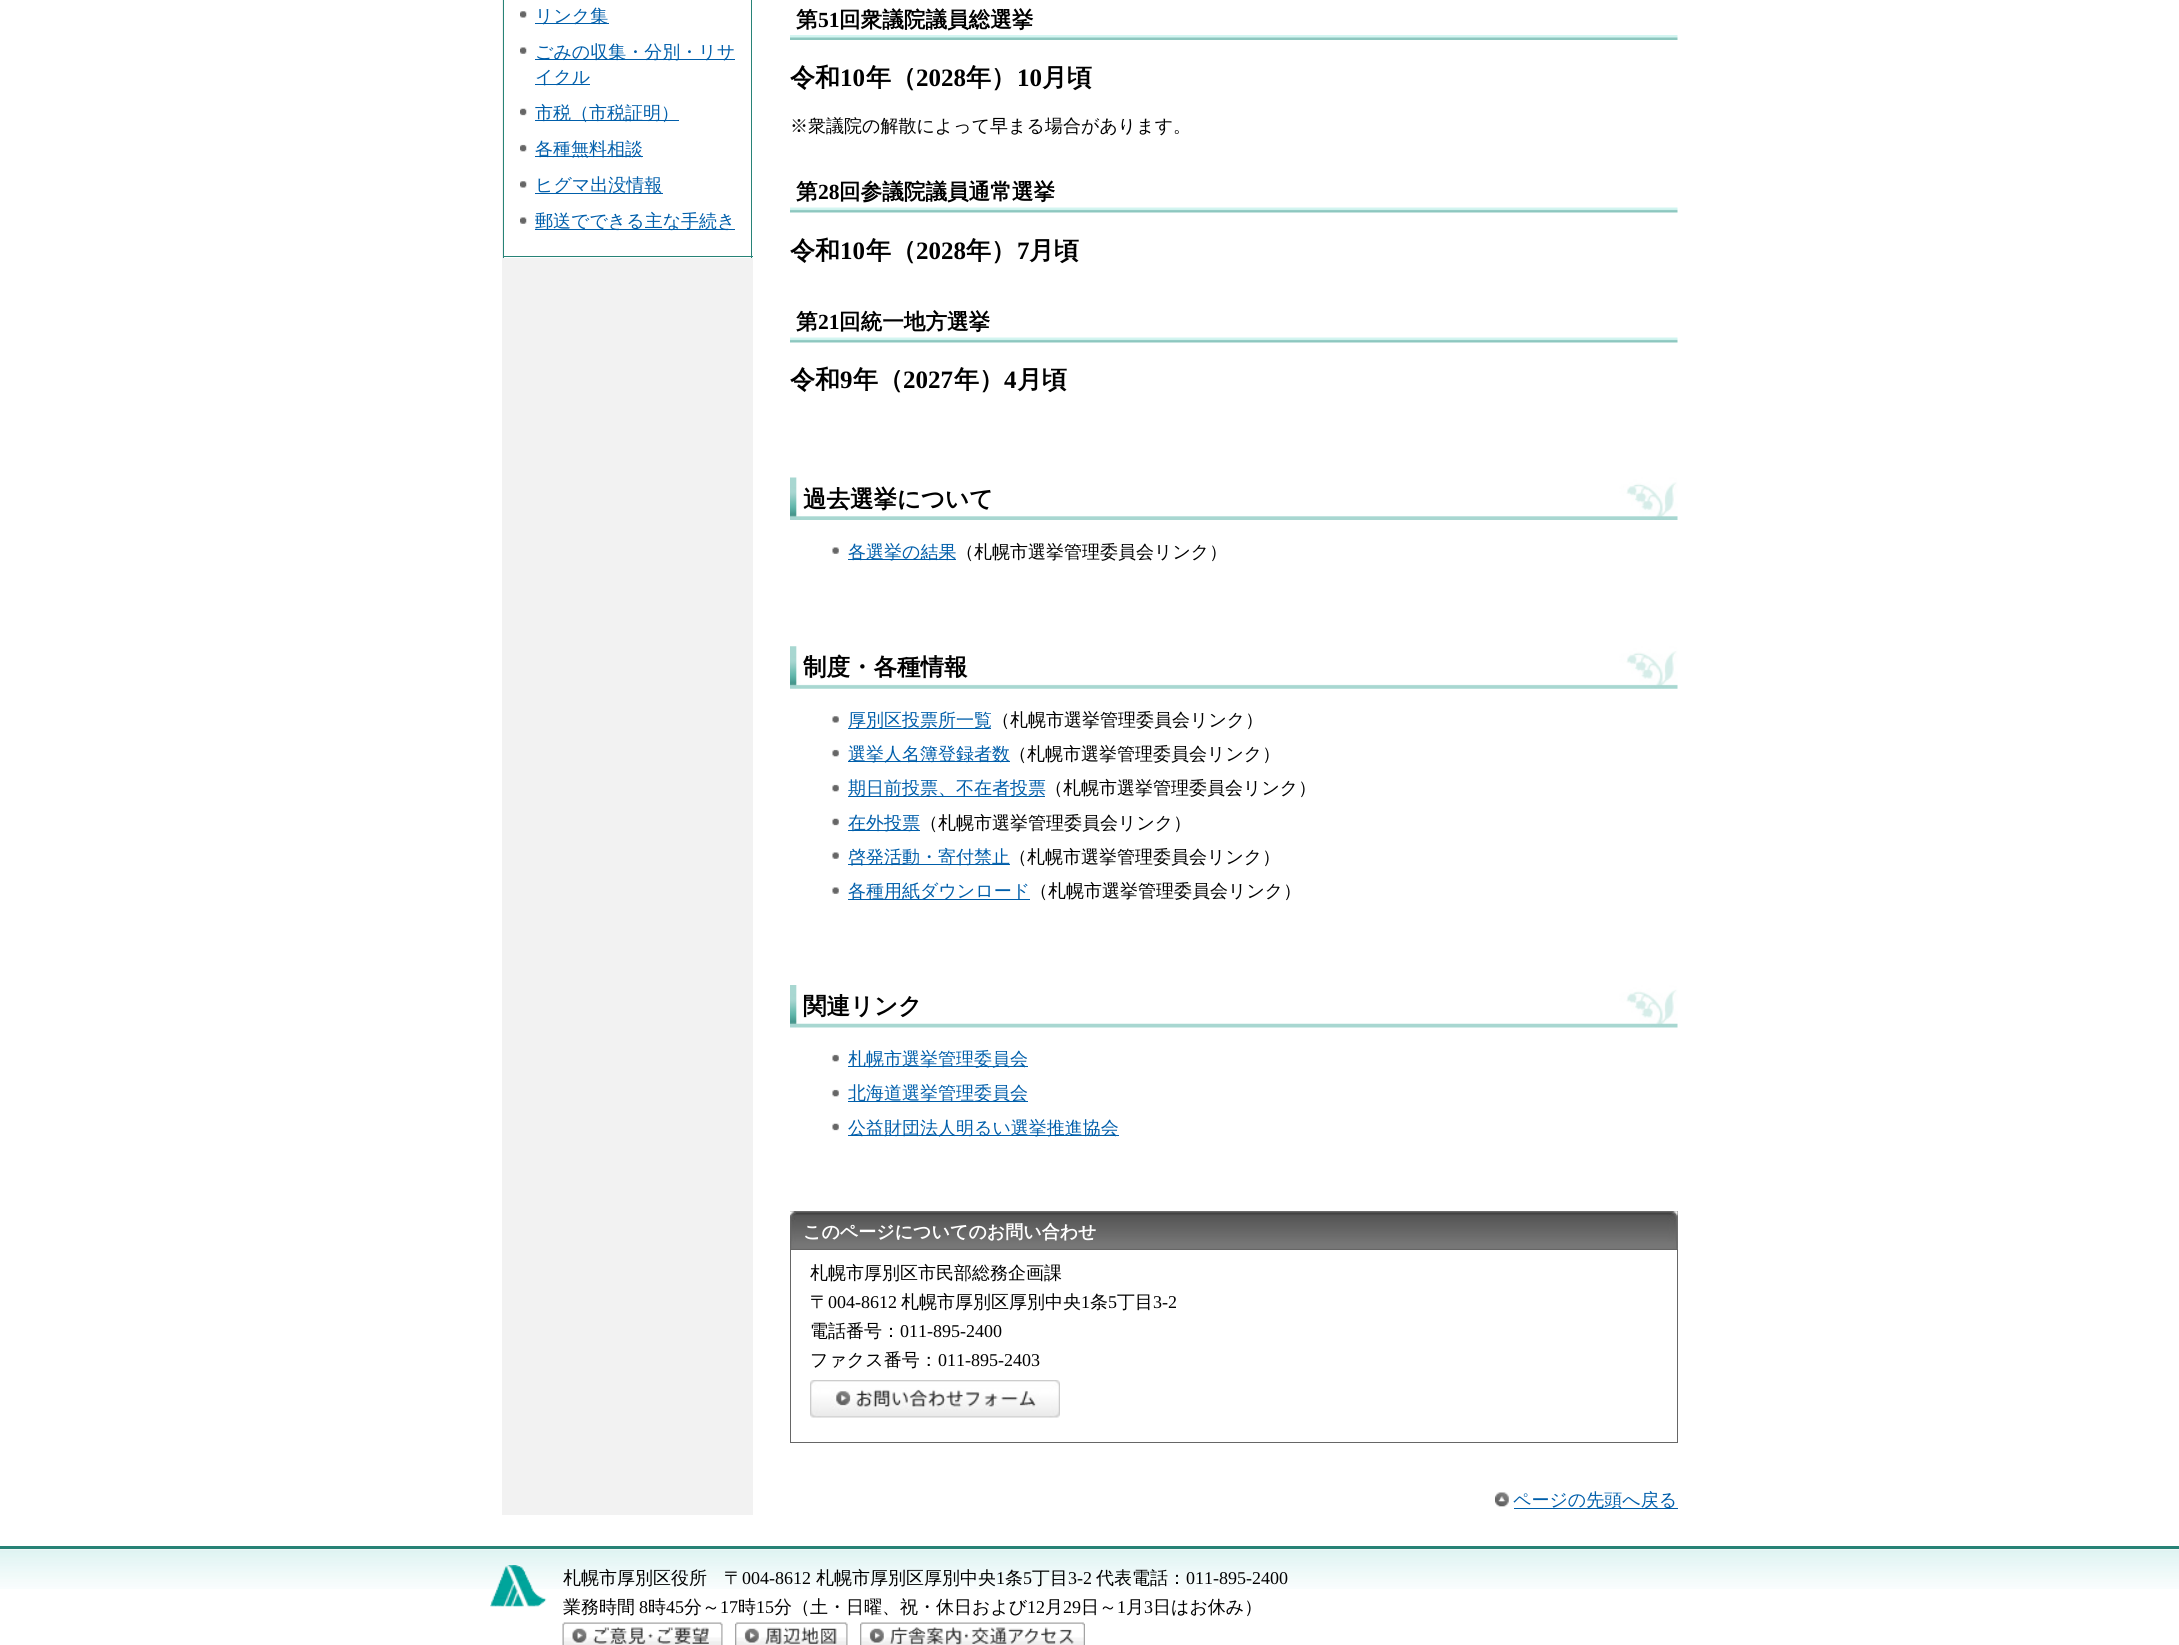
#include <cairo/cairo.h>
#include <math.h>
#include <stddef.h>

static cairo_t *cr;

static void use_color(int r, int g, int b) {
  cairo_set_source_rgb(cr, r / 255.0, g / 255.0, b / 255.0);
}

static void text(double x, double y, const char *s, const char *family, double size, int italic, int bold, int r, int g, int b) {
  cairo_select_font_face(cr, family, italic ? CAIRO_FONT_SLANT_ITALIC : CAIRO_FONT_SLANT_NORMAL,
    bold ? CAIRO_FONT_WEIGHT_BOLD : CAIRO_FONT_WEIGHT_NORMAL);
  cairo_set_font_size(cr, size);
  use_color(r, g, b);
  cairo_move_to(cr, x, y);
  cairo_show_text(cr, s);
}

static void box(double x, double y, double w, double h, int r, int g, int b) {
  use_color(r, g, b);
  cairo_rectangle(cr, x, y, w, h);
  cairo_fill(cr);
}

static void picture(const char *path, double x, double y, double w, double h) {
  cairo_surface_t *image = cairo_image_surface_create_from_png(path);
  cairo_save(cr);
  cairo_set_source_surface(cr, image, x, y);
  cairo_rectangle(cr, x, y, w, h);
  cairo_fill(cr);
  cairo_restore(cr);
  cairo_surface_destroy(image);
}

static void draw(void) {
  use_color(255, 255, 255);
  cairo_paint(cr);
  box(502, 0, 251, 1515, 242, 242, 242);
  box(504, 0, 249, 258, 255, 255, 255);
  box(751, 0, 1, 258, 39, 131, 119);
  box(503, 256, 250, 1, 39, 131, 119);
  box(503, 0, 1, 258, 39, 131, 119);
  picture("img_01.png", 520, 11, 7, 7);
  box(535, 23, 74, 1, 0, 94, 170);
  picture("img_02.png", 520, 47, 7, 7);
  box(535, 59, 200, 1, 0, 94, 170);
  box(535, 84, 55, 1, 0, 94, 170);
  picture("img_03.png", 520, 108, 7, 8);
  box(535, 120, 144, 1, 0, 94, 170);
  picture("img_04.png", 520, 144, 7, 8);
  box(535, 156, 108, 1, 0, 94, 170);
  picture("img_01.png", 520, 181, 7, 7);
  box(535, 193, 128, 1, 0, 94, 170);
  picture("img_02.png", 520, 217, 7, 7);
  box(535, 229, 200, 1, 0, 94, 170);
  picture("img_05.png", 790, 35, 888, 5);
  picture("img_06.png", 790, 207, 888, 6);
  picture("img_06.png", 790, 337, 888, 6);
  picture("img_07.png", 790, 477, 888, 43);
  picture("img_08.png", 832, 547, 7, 7);
  box(848, 559, 108, 1, 0, 94, 170);
  picture("img_09.png", 790, 646, 888, 43);
  picture("img_10.png", 832, 716, 7, 7);
  box(848, 728, 143, 1, 0, 94, 170);
  picture("img_11.png", 832, 749, 7, 8);
  box(848, 761, 162, 1, 0, 94, 170);
  picture("img_11.png", 832, 784, 7, 8);
  box(848, 796, 197, 1, 0, 94, 170);
  picture("img_12.png", 832, 818, 7, 8);
  box(848, 830, 72, 1, 0, 94, 170);
  picture("img_08.png", 832, 852, 7, 7);
  box(848, 864, 162, 1, 0, 94, 170);
  picture("img_08.png", 832, 887, 7, 7);
  box(848, 899, 182, 1, 0, 94, 170);
  picture("img_13.png", 790, 985, 888, 43);
  picture("img_11.png", 832, 1054, 7, 8);
  box(848, 1066, 180, 1, 0, 94, 170);
  picture("img_11.png", 832, 1089, 7, 8);
  box(848, 1101, 180, 1, 0, 94, 170);
  picture("img_12.png", 832, 1123, 7, 8);
  box(848, 1135, 271, 1, 0, 94, 170);
  box(790, 1211, 888, 38, 119, 119, 119);
  picture("img_14.png", 790, 1211, 888, 38);
  picture("img_15.png", 790, 1211, 6, 38);
  cairo_rectangle(cr, 790.5, 1249.5, 887, 193);
  use_color(102, 102, 102);
  cairo_set_line_width(cr, 1);
  cairo_stroke(cr);
  picture("img_16.png", 810, 1380, 250, 38);
  picture("img_17.png", 1495, 1492, 14, 15);
  box(1514, 1508, 164, 1, 0, 94, 170);
  picture("img_18.png", 0, 1549, 2179, 40);
  box(0, 1546, 2179, 3, 39, 130, 118);
  picture("img_19.png", 490, 1565, 57, 42);
  picture("img_20.png", 562, 1622, 161, 23);
  picture("img_21.png", 735, 1622, 113, 23);
  picture("img_22.png", 860, 1622, 225, 23);
  text(535, 22, "リンク集", "WenQuanYi Zen Hei Medium", 18, 0, 0, 0, 94, 170);
  text(535, 58, "ごみの収集・分別・リサ", "WenQuanYi Zen Hei Medium", 18, 0, 0, 0, 94, 170);
  text(535, 83, "イクル", "WenQuanYi Zen Hei Medium", 18, 0, 0, 0, 94, 170);
  text(535, 119, "市税（市税証明）", "WenQuanYi Zen Hei Medium", 18, 0, 0, 0, 94, 170);
  text(535, 155, "各種無料相談", "WenQuanYi Zen Hei Medium", 18, 0, 0, 0, 94, 170);
  text(535, 191, "ヒグマ出没情報", "WenQuanYi Zen Hei Medium", 18, 0, 0, 0, 94, 170);
  text(535, 227, "郵送でできる主な手続き", "WenQuanYi Zen Hei Medium", 18, 0, 0, 0, 94, 170);
  text(796, 27, "第", "WenQuanYi Zen Hei", 21.6, 0, 1, 0, 0, 0);
  text(818, 27, "51", "Liberation Serif", 21.6, 0, 1, 0, 0, 0);
  text(839, 27, "回衆議院議員総選挙", "WenQuanYi Zen Hei", 21.6, 0, 1, 0, 0, 0);
  text(790, 86, "令和", "WenQuanYi Zen Hei", 25, 0, 1, 0, 0, 0);
  text(840, 86, "10", "Liberation Serif", 25, 0, 1, 0, 0, 0);
  text(866, 86, "年（", "WenQuanYi Zen Hei", 25, 0, 1, 0, 0, 0);
  text(916, 86, "2028", "Liberation Serif", 25, 0, 1, 0, 0, 0);
  text(966, 86, "年）", "WenQuanYi Zen Hei", 25, 0, 1, 0, 0, 0);
  text(1017, 86, "10", "Liberation Serif", 25, 0, 1, 0, 0, 0);
  text(1042, 86, "月頃", "WenQuanYi Zen Hei", 25, 0, 1, 0, 0, 0);
  text(790, 132, "※衆議院の解散によって早まる場合があります。", "WenQuanYi Zen Hei Medium", 18, 0, 0, 0, 0, 0);
  text(796, 199, "第", "WenQuanYi Zen Hei", 21.6, 0, 1, 0, 0, 0);
  text(818, 199, "28", "Liberation Serif", 21.6, 0, 1, 0, 0, 0);
  text(839, 199, "回参議院議員通常選挙", "WenQuanYi Zen Hei", 21.6, 0, 1, 0, 0, 0);
  text(790, 259, "令和", "WenQuanYi Zen Hei", 25, 0, 1, 0, 0, 0);
  text(840, 259, "10", "Liberation Serif", 25, 0, 1, 0, 0, 0);
  text(866, 259, "年（", "WenQuanYi Zen Hei", 25, 0, 1, 0, 0, 0);
  text(916, 259, "2028", "Liberation Serif", 25, 0, 1, 0, 0, 0);
  text(966, 259, "年）", "WenQuanYi Zen Hei", 25, 0, 1, 0, 0, 0);
  text(1017, 259, "7", "Liberation Serif", 25, 0, 1, 0, 0, 0);
  text(1029, 259, "月頃", "WenQuanYi Zen Hei", 25, 0, 1, 0, 0, 0);
  text(796, 329, "第", "WenQuanYi Zen Hei", 21.6, 0, 1, 0, 0, 0);
  text(818, 329, "21", "Liberation Serif", 21.6, 0, 1, 0, 0, 0);
  text(839, 329, "回統一地方選挙", "WenQuanYi Zen Hei", 21.6, 0, 1, 0, 0, 0);
  text(790, 388, "令和", "WenQuanYi Zen Hei", 25, 0, 1, 0, 0, 0);
  text(840, 388, "9", "Liberation Serif", 25, 0, 1, 0, 0, 0);
  text(853, 388, "年（", "WenQuanYi Zen Hei", 25, 0, 1, 0, 0, 0);
  text(903, 388, "2027", "Liberation Serif", 25, 0, 1, 0, 0, 0);
  text(954, 388, "年）", "WenQuanYi Zen Hei", 25, 0, 1, 0, 0, 0);
  text(1004, 388, "4", "Liberation Serif", 25, 0, 1, 0, 0, 0);
  text(1017, 388, "月頃", "WenQuanYi Zen Hei", 25, 0, 1, 0, 0, 0);
  text(803, 507, "過去選挙について", "WenQuanYi Zen Hei", 23.5, 0, 1, 0, 0, 0);
  text(848, 558, "各選挙の結果", "WenQuanYi Zen Hei Medium", 18, 0, 0, 0, 94, 170);
  text(956, 558, "（札幌市選挙管理委員会リンク）", "WenQuanYi Zen Hei Medium", 18, 0, 0, 0, 0, 0);
  text(803, 675, "制度・各種情報", "WenQuanYi Zen Hei", 23.5, 0, 1, 0, 0, 0);
  text(848, 726, "厚別区投票所一覧", "WenQuanYi Zen Hei Medium", 18, 0, 0, 0, 94, 170);
  text(992, 726, "（札幌市選挙管理委員会リンク）", "WenQuanYi Zen Hei Medium", 18, 0, 0, 0, 0, 0);
  text(848, 760, "選挙人名簿登録者数", "WenQuanYi Zen Hei Medium", 18, 0, 0, 0, 94, 170);
  text(1009, 760, "（札幌市選挙管理委員会リンク）", "WenQuanYi Zen Hei Medium", 18, 0, 0, 0, 0, 0);
  text(848, 794, "期日前投票、不在者投票", "WenQuanYi Zen Hei Medium", 18, 0, 0, 0, 94, 170);
  text(1045, 794, "（札幌市選挙管理委員会リンク）", "WenQuanYi Zen Hei Medium", 18, 0, 0, 0, 0, 0);
  text(848, 829, "在外投票", "WenQuanYi Zen Hei Medium", 18, 0, 0, 0, 94, 170);
  text(920, 829, "（札幌市選挙管理委員会リンク）", "WenQuanYi Zen Hei Medium", 18, 0, 0, 0, 0, 0);
  text(848, 863, "啓発活動・寄付禁止", "WenQuanYi Zen Hei Medium", 18, 0, 0, 0, 94, 170);
  text(1009, 863, "（札幌市選挙管理委員会リンク）", "WenQuanYi Zen Hei Medium", 18, 0, 0, 0, 0, 0);
  text(848, 897, "各種用紙ダウンロード", "WenQuanYi Zen Hei Medium", 18, 0, 0, 0, 94, 170);
  text(1030, 897, "（札幌市選挙管理委員会リンク）", "WenQuanYi Zen Hei Medium", 18, 0, 0, 0, 0, 0);
  text(803, 1014, "関連リンク", "WenQuanYi Zen Hei", 23.5, 0, 1, 0, 0, 0);
  text(848, 1065, "札幌市選挙管理委員会", "WenQuanYi Zen Hei Medium", 18, 0, 0, 0, 94, 170);
  text(848, 1099, "北海道選挙管理委員会", "WenQuanYi Zen Hei Medium", 18, 0, 0, 0, 94, 170);
  text(848, 1134, "公益財団法人明るい選挙推進協会", "WenQuanYi Zen Hei Medium", 18, 0, 0, 0, 94, 170);
  text(803, 1238, "このページについてのお問い合わせ", "WenQuanYi Zen Hei", 18, 0, 1, 255, 255, 255);
  text(810, 1279, "札幌市厚別区市民部総務企画課", "WenQuanYi Zen Hei Medium", 18, 0, 0, 0, 0, 0);
  text(810, 1308, "〒", "WenQuanYi Zen Hei Medium", 18, 0, 0, 0, 0, 0);
  text(828, 1308, "004-8612", "Liberation Serif", 18, 0, 0, 0, 0, 0);
  text(901, 1308, "札幌市厚別区厚別中央", "WenQuanYi Zen Hei Medium", 18, 0, 0, 0, 0, 0);
  text(1081, 1308, "1", "Liberation Serif", 18, 0, 0, 0, 0, 0);
  text(1090, 1308, "条", "WenQuanYi Zen Hei Medium", 18, 0, 0, 0, 0, 0);
  text(1108, 1308, "5", "Liberation Serif", 18, 0, 0, 0, 0, 0);
  text(1117, 1308, "丁目", "WenQuanYi Zen Hei Medium", 18, 0, 0, 0, 0, 0);
  text(1153, 1308, "3-2", "Liberation Serif", 18, 0, 0, 0, 0, 0);
  text(810, 1337, "電話番号：", "WenQuanYi Zen Hei Medium", 18, 0, 0, 0, 0, 0);
  text(900, 1337, "011-895-2400", "Liberation Serif", 18, 0, 0, 0, 0, 0);
  text(810, 1366, "ファクス番号：", "WenQuanYi Zen Hei Medium", 18, 0, 0, 0, 0, 0);
  text(938, 1366, "011-895-2403", "Liberation Serif", 18, 0, 0, 0, 0, 0);
  text(1513, 1506, "ページの先頭へ戻る", "WenQuanYi Zen Hei Medium", 18, 0, 0, 0, 94, 170);
  text(563, 1584, "札幌市厚別区役所", "WenQuanYi Zen Hei Medium", 18, 0, 0, 0, 0, 0);
  text(724, 1584, "〒", "WenQuanYi Zen Hei Medium", 18, 0, 0, 0, 0, 0);
  text(742, 1584, "004-8612", "Liberation Serif", 18, 0, 0, 0, 0, 0);
  text(816, 1584, "札幌市厚別区厚別中央", "WenQuanYi Zen Hei Medium", 18, 0, 0, 0, 0, 0);
  text(996, 1584, "1", "Liberation Serif", 18, 0, 0, 0, 0, 0);
  text(1005, 1584, "条", "WenQuanYi Zen Hei Medium", 18, 0, 0, 0, 0, 0);
  text(1023, 1584, "5", "Liberation Serif", 18, 0, 0, 0, 0, 0);
  text(1032, 1584, "丁目", "WenQuanYi Zen Hei Medium", 18, 0, 0, 0, 0, 0);
  text(1068, 1584, "3-2", "Liberation Serif", 18, 0, 0, 0, 0, 0);
  text(1096, 1584, "代表電話：", "WenQuanYi Zen Hei Medium", 18, 0, 0, 0, 0, 0);
  text(1186, 1584, "011-895-2400", "Liberation Serif", 18, 0, 0, 0, 0, 0);
  text(563, 1613, "業務時間", "WenQuanYi Zen Hei Medium", 18, 0, 0, 0, 0, 0);
  text(639, 1613, "8", "Liberation Serif", 18, 0, 0, 0, 0, 0);
  text(648, 1613, "時", "WenQuanYi Zen Hei Medium", 18, 0, 0, 0, 0, 0);
  text(666, 1613, "45", "Liberation Serif", 18, 0, 0, 0, 0, 0);
  text(684, 1613, "分～", "WenQuanYi Zen Hei Medium", 18, 0, 0, 0, 0, 0);
  text(720, 1613, "17", "Liberation Serif", 18, 0, 0, 0, 0, 0);
  text(738, 1613, "時", "WenQuanYi Zen Hei Medium", 18, 0, 0, 0, 0, 0);
  text(756, 1613, "15", "Liberation Serif", 18, 0, 0, 0, 0, 0);
  text(774, 1613, "分（土・日曜、祝・休日および", "WenQuanYi Zen Hei Medium", 18, 0, 0, 0, 0, 0);
  text(1027, 1613, "12", "Liberation Serif", 18, 0, 0, 0, 0, 0);
  text(1045, 1613, "月", "WenQuanYi Zen Hei Medium", 18, 0, 0, 0, 0, 0);
  text(1063, 1613, "29", "Liberation Serif", 18, 0, 0, 0, 0, 0);
  text(1081, 1613, "日～", "WenQuanYi Zen Hei Medium", 18, 0, 0, 0, 0, 0);
  text(1117, 1613, "1", "Liberation Serif", 18, 0, 0, 0, 0, 0);
  text(1126, 1613, "月", "WenQuanYi Zen Hei Medium", 18, 0, 0, 0, 0, 0);
  text(1144, 1613, "3", "Liberation Serif", 18, 0, 0, 0, 0, 0);
  text(1153, 1613, "日はお休み）", "WenQuanYi Zen Hei Medium", 18, 0, 0, 0, 0, 0);
}

int main(void) {
  cairo_surface_t *surface = cairo_image_surface_create(CAIRO_FORMAT_RGB24, 2179, 1645);
  cr = cairo_create(surface);
  cairo_font_options_t *options = cairo_font_options_create();
  cairo_font_options_set_hint_metrics(options, CAIRO_HINT_METRICS_OFF);
  cairo_font_options_set_hint_style(options, CAIRO_HINT_STYLE_NONE);
  cairo_set_font_options(cr, options);
  cairo_set_miter_limit(cr, 4);
  draw();
  cairo_surface_write_to_png(surface, "out.png");
  cairo_font_options_destroy(options);
  cairo_destroy(cr);
  cairo_surface_destroy(surface);
  return 0;
}
